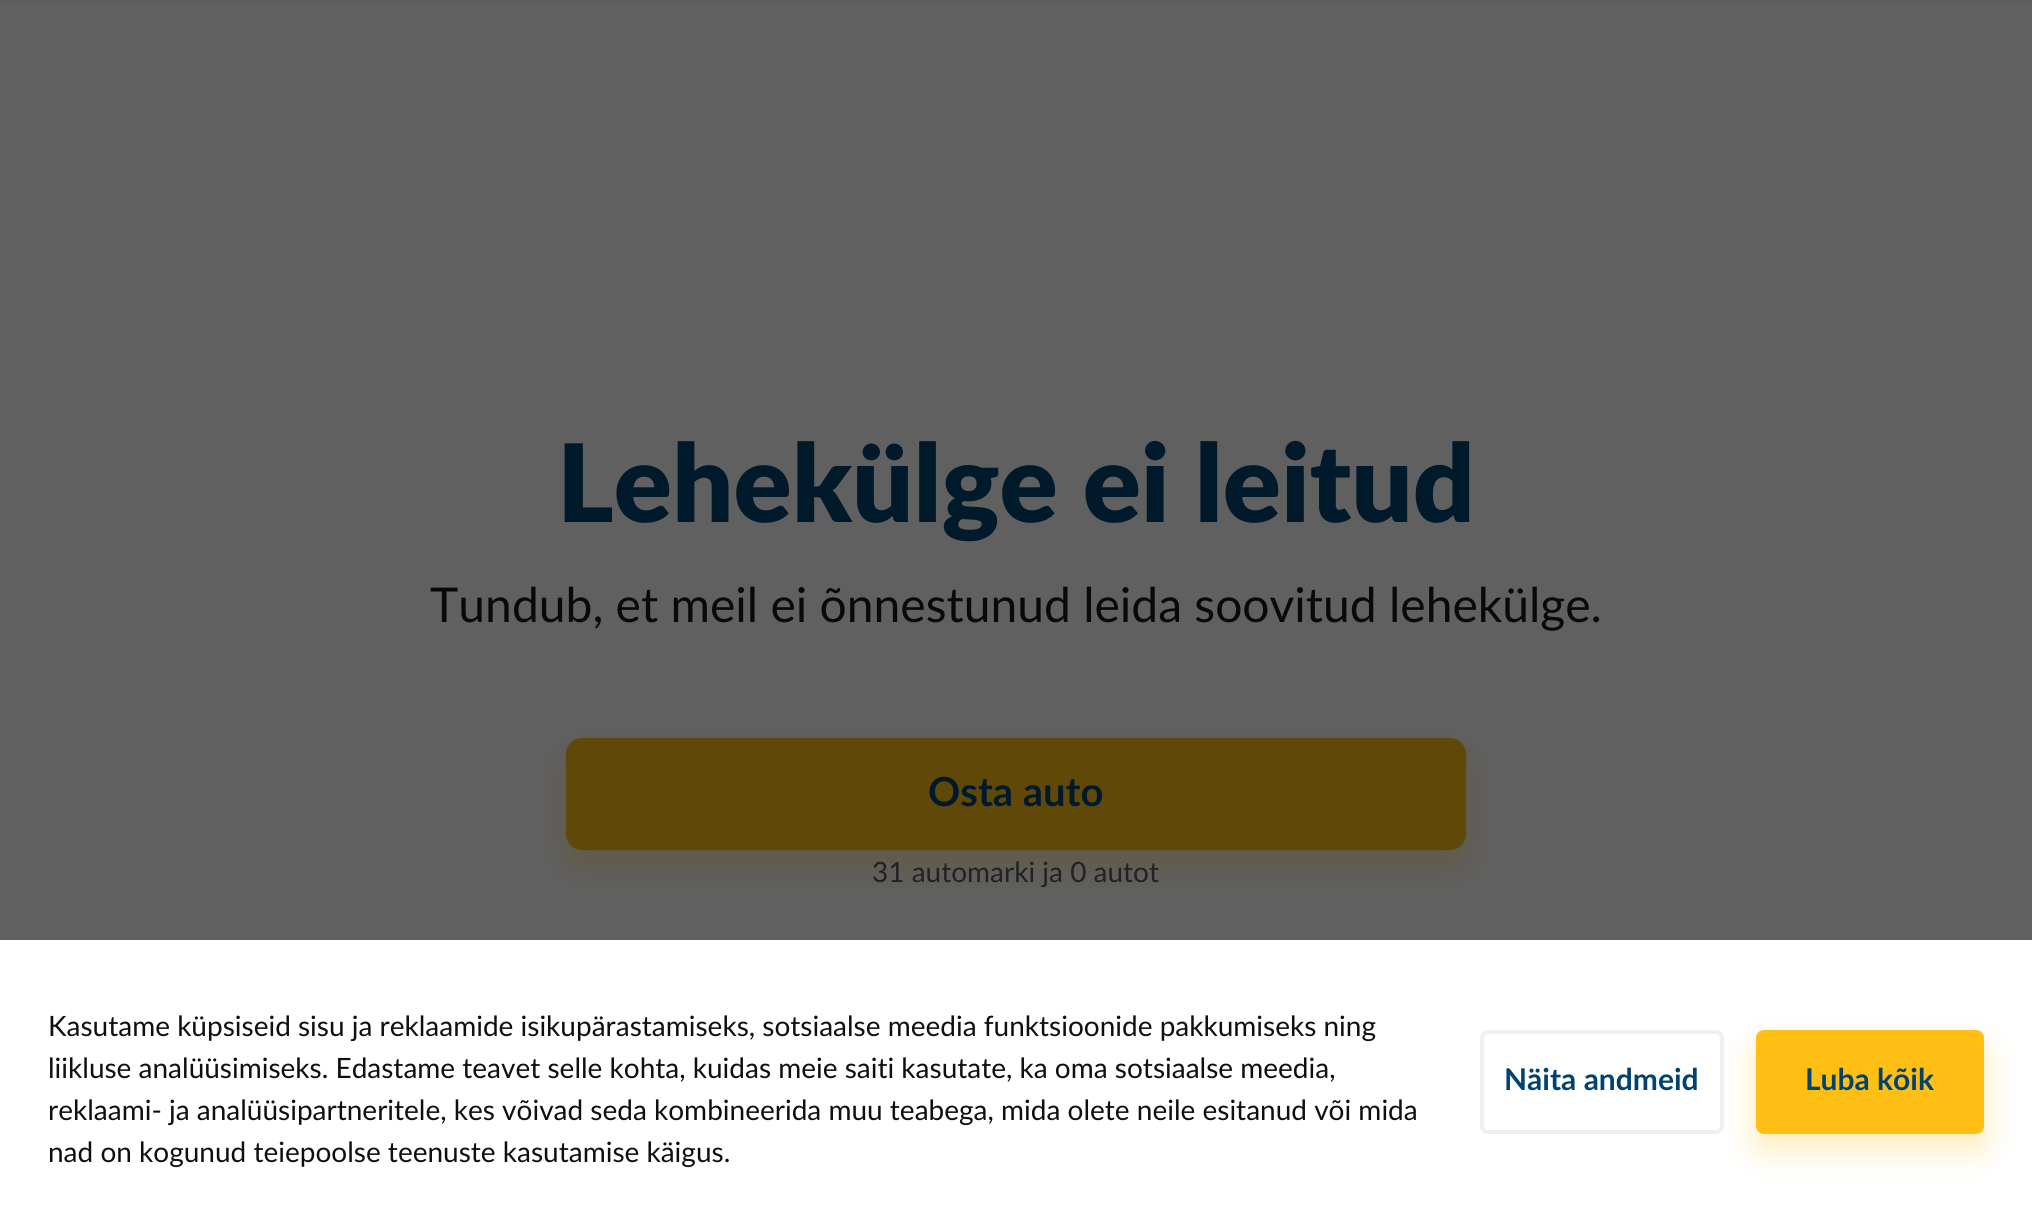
#include <cairo/cairo.h>
#include <math.h>
#include <stddef.h>

static cairo_t *cr;

static void use_color(int r, int g, int b) {
  cairo_set_source_rgb(cr, r / 255.0, g / 255.0, b / 255.0);
}

static void text(double x, double y, const char *s, const char *family, double size, int italic, int bold, int r, int g, int b) {
  cairo_select_font_face(cr, family, italic ? CAIRO_FONT_SLANT_ITALIC : CAIRO_FONT_SLANT_NORMAL,
    bold ? CAIRO_FONT_WEIGHT_BOLD : CAIRO_FONT_WEIGHT_NORMAL);
  cairo_set_font_size(cr, size);
  use_color(r, g, b);
  cairo_move_to(cr, x, y);
  cairo_show_text(cr, s);
}

static void box(double x, double y, double w, double h, int r, int g, int b) {
  use_color(r, g, b);
  cairo_rectangle(cr, x, y, w, h);
  cairo_fill(cr);
}

static void round_rect(double x, double y, double w, double h, double r) {
  cairo_new_sub_path(cr);
  cairo_arc(cr, x + w - r, y + h - r, r, 0, M_PI / 2);
  cairo_arc(cr, x + r, y + h - r, r, M_PI / 2, M_PI);
  cairo_arc(cr, x + r, y + r, r, M_PI, 1.5 * M_PI);
  cairo_arc(cr, x + w - r, y + r, r, 1.5 * M_PI, 2 * M_PI);
  cairo_close_path(cr);
}

static void shadow(double x, double y, double w, double h, double r, double blur, double alpha) {
  cairo_push_group_with_content(cr, CAIRO_CONTENT_ALPHA);
  cairo_set_operator(cr, CAIRO_OPERATOR_SOURCE);
  for (int i = 15; i >= -15 && fmin(w, h) + blur * i / 3 > 0; i -= 2) {
    double e = blur * i / 6;
    cairo_set_source_rgba(cr, 0, 0, 0, alpha * erfc((i - 1) / 8.5) / 2);
    round_rect(x - e, y - e, w + 2 * e, h + 2 * e, fmax(0, fmin(r + e + blur * .6, fmin(w, h) / 2 + e)));
    cairo_fill(cr);
  }
  cairo_pattern_t *soft = cairo_pop_group(cr);
  cairo_mask(cr, soft);
  cairo_pattern_destroy(soft);
}

static void draw(void) {
  use_color(96, 96, 96);
  cairo_paint(cr);
  box(0, 0, 2032, 2, 93, 93, 93);
  use_color(96, 72, 8);
  shadow(566, 754, 900, 112, 16, 16, 0.3);
  use_color(96, 72, 8);
  round_rect(566, 738, 900, 112, 16);
  cairo_fill(cr);
  box(0, 940, 2032, 283, 255, 255, 255);
  round_rect(1482, 1032, 240, 100, 6);
  use_color(240, 240, 240);
  cairo_set_line_width(cr, 4);
  cairo_stroke(cr);
  use_color(255, 191, 20);
  shadow(1756, 1046, 228, 104, 8, 16, 0.3);
  use_color(255, 191, 20);
  round_rect(1757, 1031, 226, 102, 7);
  cairo_fill_preserve(cr);
  cairo_set_line_width(cr, 2);
  cairo_stroke(cr);
  text(557, 522, "Lehekülge ei leitud", "Lato Black", 108, 0, 0, 0, 26, 43);
  text(430, 622, "Tundub, et meil ei õnnestunud leida soovitud lehekülge.", "Lato", 48, 0, 0, 9, 9, 10);
  text(928, 806, "Osta auto", "Lato", 40, 0, 1, 0, 26, 43);
  text(872, 882, "31 automarki ja 0 autot", "Lato", 28, 0, 0, 33, 34, 35);
  text(48, 1036, "Kasutame küpsiseid sisu ja reklaamide isikupärastamiseks, sotsiaalse meedia funktsioonide pakkumiseks ning", "Lato", 28, 0, 0, 15, 15, 15);
  text(48, 1078, "liikluse analüüsimiseks. Edastame teavet selle kohta, kuidas meie saiti kasutate, ka oma sotsiaalse meedia,", "Lato", 28, 0, 0, 15, 15, 15);
  text(48, 1120, "reklaami- ja analüüsipartneritele, kes võivad seda kombineerida muu teabega, mida olete neile esitanud või mida", "Lato", 28, 0, 0, 15, 15, 15);
  text(48, 1162, "nad on kogunud teiepoolse teenuste kasutamise käigus.", "Lato", 28, 0, 0, 15, 15, 15);
  text(1504, 1090, "Näita andmeid", "Lato", 30, 0, 1, 0, 67, 113);
  text(1805, 1090, "Luba kõik", "Lato", 30, 0, 1, 0, 67, 113);
}

int main(void) {
  cairo_surface_t *surface = cairo_image_surface_create(CAIRO_FORMAT_RGB24, 2032, 1223);
  cr = cairo_create(surface);
  cairo_font_options_t *options = cairo_font_options_create();
  cairo_font_options_set_hint_metrics(options, CAIRO_HINT_METRICS_OFF);
  cairo_font_options_set_hint_style(options, CAIRO_HINT_STYLE_NONE);
  cairo_set_font_options(cr, options);
  cairo_set_miter_limit(cr, 4);
  draw();
  cairo_surface_write_to_png(surface, "out.png");
  cairo_font_options_destroy(options);
  cairo_destroy(cr);
  cairo_surface_destroy(surface);
  return 0;
}
